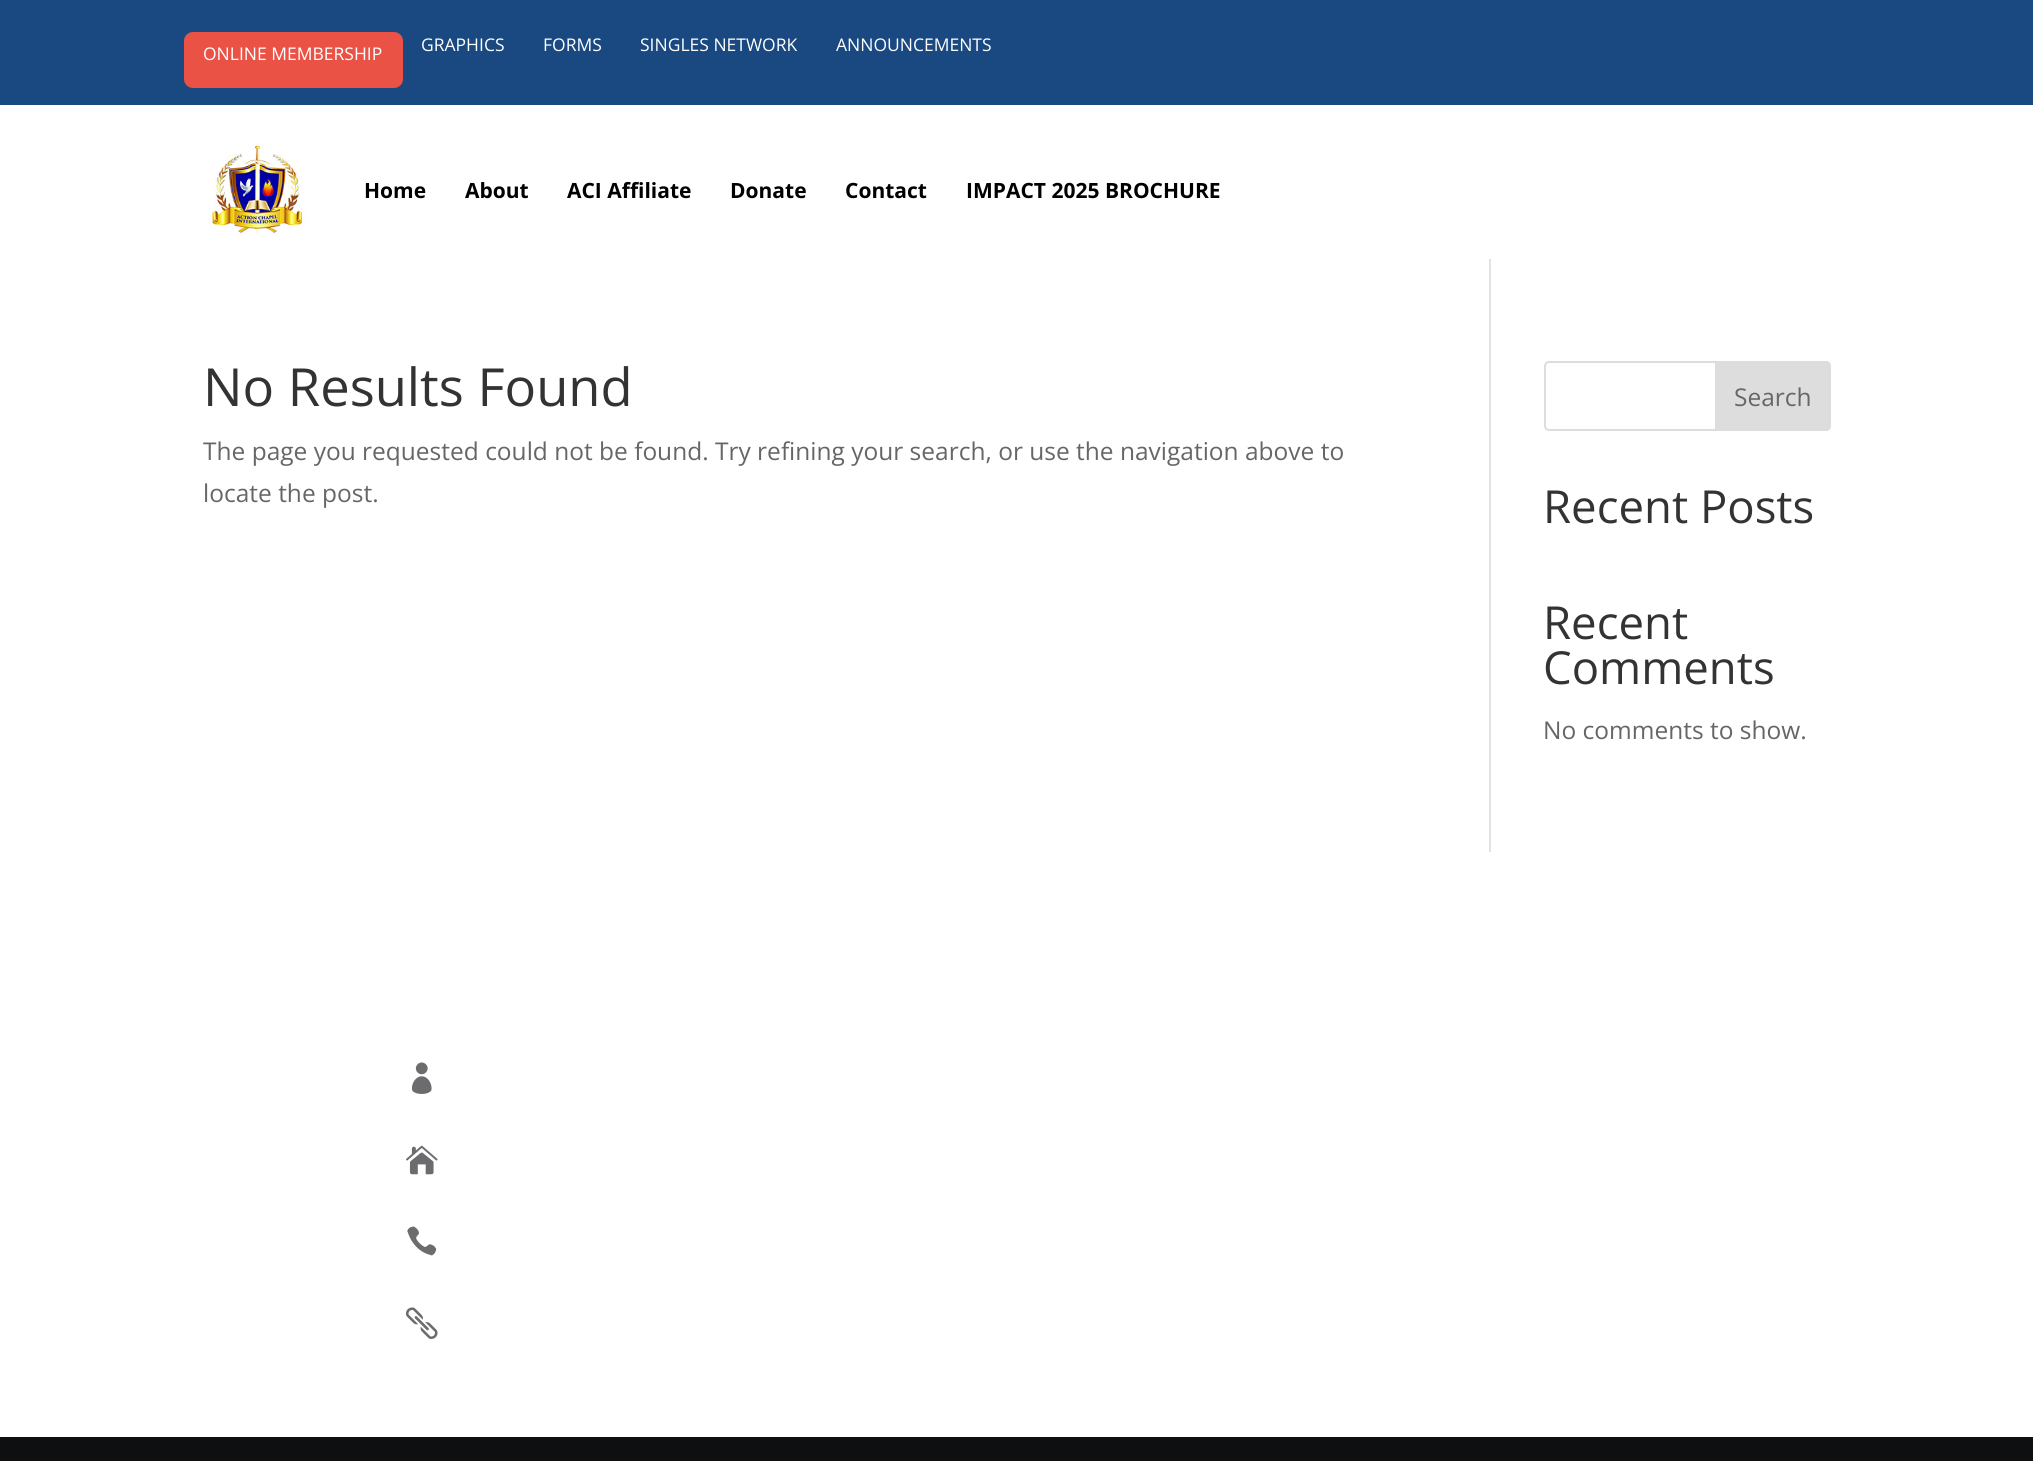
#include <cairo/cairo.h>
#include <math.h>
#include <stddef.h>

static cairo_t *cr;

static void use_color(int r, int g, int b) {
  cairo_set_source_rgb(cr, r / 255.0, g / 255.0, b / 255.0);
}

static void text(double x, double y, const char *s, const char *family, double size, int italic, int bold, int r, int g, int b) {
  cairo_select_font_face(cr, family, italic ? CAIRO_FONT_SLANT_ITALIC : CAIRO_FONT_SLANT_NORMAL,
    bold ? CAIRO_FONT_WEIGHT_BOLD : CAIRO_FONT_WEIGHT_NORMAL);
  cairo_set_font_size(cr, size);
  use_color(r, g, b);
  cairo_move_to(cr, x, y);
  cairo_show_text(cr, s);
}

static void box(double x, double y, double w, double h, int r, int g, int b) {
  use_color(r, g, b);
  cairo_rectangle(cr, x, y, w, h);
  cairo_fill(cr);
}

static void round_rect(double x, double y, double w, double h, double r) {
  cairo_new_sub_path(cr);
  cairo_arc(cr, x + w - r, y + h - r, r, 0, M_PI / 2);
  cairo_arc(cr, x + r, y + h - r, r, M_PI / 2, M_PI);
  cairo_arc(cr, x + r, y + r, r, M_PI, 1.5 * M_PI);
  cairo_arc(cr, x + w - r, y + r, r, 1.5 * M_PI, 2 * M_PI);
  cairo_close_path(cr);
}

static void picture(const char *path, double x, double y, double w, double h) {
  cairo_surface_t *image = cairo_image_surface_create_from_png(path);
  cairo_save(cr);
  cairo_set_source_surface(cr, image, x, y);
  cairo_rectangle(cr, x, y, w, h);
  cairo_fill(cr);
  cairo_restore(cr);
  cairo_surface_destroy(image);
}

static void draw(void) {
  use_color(255, 255, 255);
  cairo_paint(cr);
  box(0, 0, 2033, 105, 25, 73, 128);
  use_color(235, 82, 70);
  round_rect(184, 32, 219, 56, 9);
  cairo_fill(cr);
  picture("img_01.png", 209, 142, 98, 93);
  box(1489, 259, 2, 593, 226, 226, 226);
  round_rect(1545, 362, 285, 68, 4);
  use_color(221, 221, 221);
  cairo_stroke(cr);
  cairo_new_path(cr);
  cairo_move_to(cr, 1716, 362);
  cairo_line_to(cr, 1826, 362);
  cairo_curve_to(cr, 1828, 362, 1830, 364, 1830, 366);
  cairo_line_to(cr, 1830, 426);
  cairo_curve_to(cr, 1830, 428, 1828, 430, 1826, 430);
  cairo_line_to(cr, 1716, 430);
  cairo_close_path(cr);
  cairo_fill_preserve(cr);
  cairo_stroke(cr);
  picture("img_02.png", 411, 1062, 21, 32);
  picture("img_03.png", 406, 1145, 32, 30);
  picture("img_04.png", 407, 1226, 30, 30);
  picture("img_05.png", 406, 1307, 32, 32);
  box(0, 1437, 2033, 24, 13, 15, 16);
  text(421, 51, "GRAPHICS", "Open Sans", 17.5, 0, 0, 255, 255, 255);
  text(543, 51, "FORMS", "Open Sans", 17.5, 0, 0, 255, 255, 255);
  text(640, 51, "SINGLES NETWORK", "Open Sans", 17.5, 0, 0, 255, 255, 255);
  text(836, 51, "ANNOUNCEMENTS", "Open Sans", 17.5, 0, 0, 255, 255, 255);
  text(203, 60, "ONLINE MEMBERSHIP", "Open Sans", 17.5, 0, 0, 255, 255, 255);
  text(364, 198, "Home", "Open Sans", 21, 0, 1, 0, 0, 0);
  text(465, 198, "About", "Open Sans", 21, 0, 1, 0, 0, 0);
  text(567, 198, "ACI Affiliate", "Open Sans", 21, 0, 1, 0, 0, 0);
  text(730, 198, "Donate", "Open Sans", 21, 0, 1, 0, 0, 0);
  text(845, 198, "Contact", "Open Sans", 21, 0, 1, 0, 0, 0);
  text(966, 198, "IMPACT 2025 BROCHURE", "Open Sans", 21, 0, 1, 0, 0, 0);
  text(203, 406, "No Results Found", "Open Sans", 52.5, 0, 0, 51, 51, 51);
  text(203, 460, "The page you requested could not be found. Try refining your search, or use the navigation above to", "Open Sans", 24.5, 0, 0, 102, 102, 102);
  text(203, 502, "locate the post.", "Open Sans", 24.5, 0, 0, 102, 102, 102);
  text(1734, 406, "Search", "Open Sans", 24.5, 0, 0, 102, 102, 102);
  text(1543, 523, "Recent Posts", "Open Sans", 45.5, 0, 0, 51, 51, 51);
  text(1543, 639, "Recent", "Open Sans", 45.5, 0, 0, 51, 51, 51);
  text(1543, 684, "Comments", "Open Sans", 45.5, 0, 0, 51, 51, 51);
  text(1543, 739, "No comments to show.", "Open Sans", 24.5, 0, 0, 102, 102, 102);
}

int main(void) {
  cairo_surface_t *surface = cairo_image_surface_create(CAIRO_FORMAT_RGB24, 2033, 1461);
  cr = cairo_create(surface);
  cairo_font_options_t *options = cairo_font_options_create();
  cairo_font_options_set_hint_metrics(options, CAIRO_HINT_METRICS_OFF);
  cairo_font_options_set_hint_style(options, CAIRO_HINT_STYLE_NONE);
  cairo_set_font_options(cr, options);
  cairo_set_miter_limit(cr, 4);
  draw();
  cairo_surface_write_to_png(surface, "out.png");
  cairo_font_options_destroy(options);
  cairo_destroy(cr);
  cairo_surface_destroy(surface);
  return 0;
}
